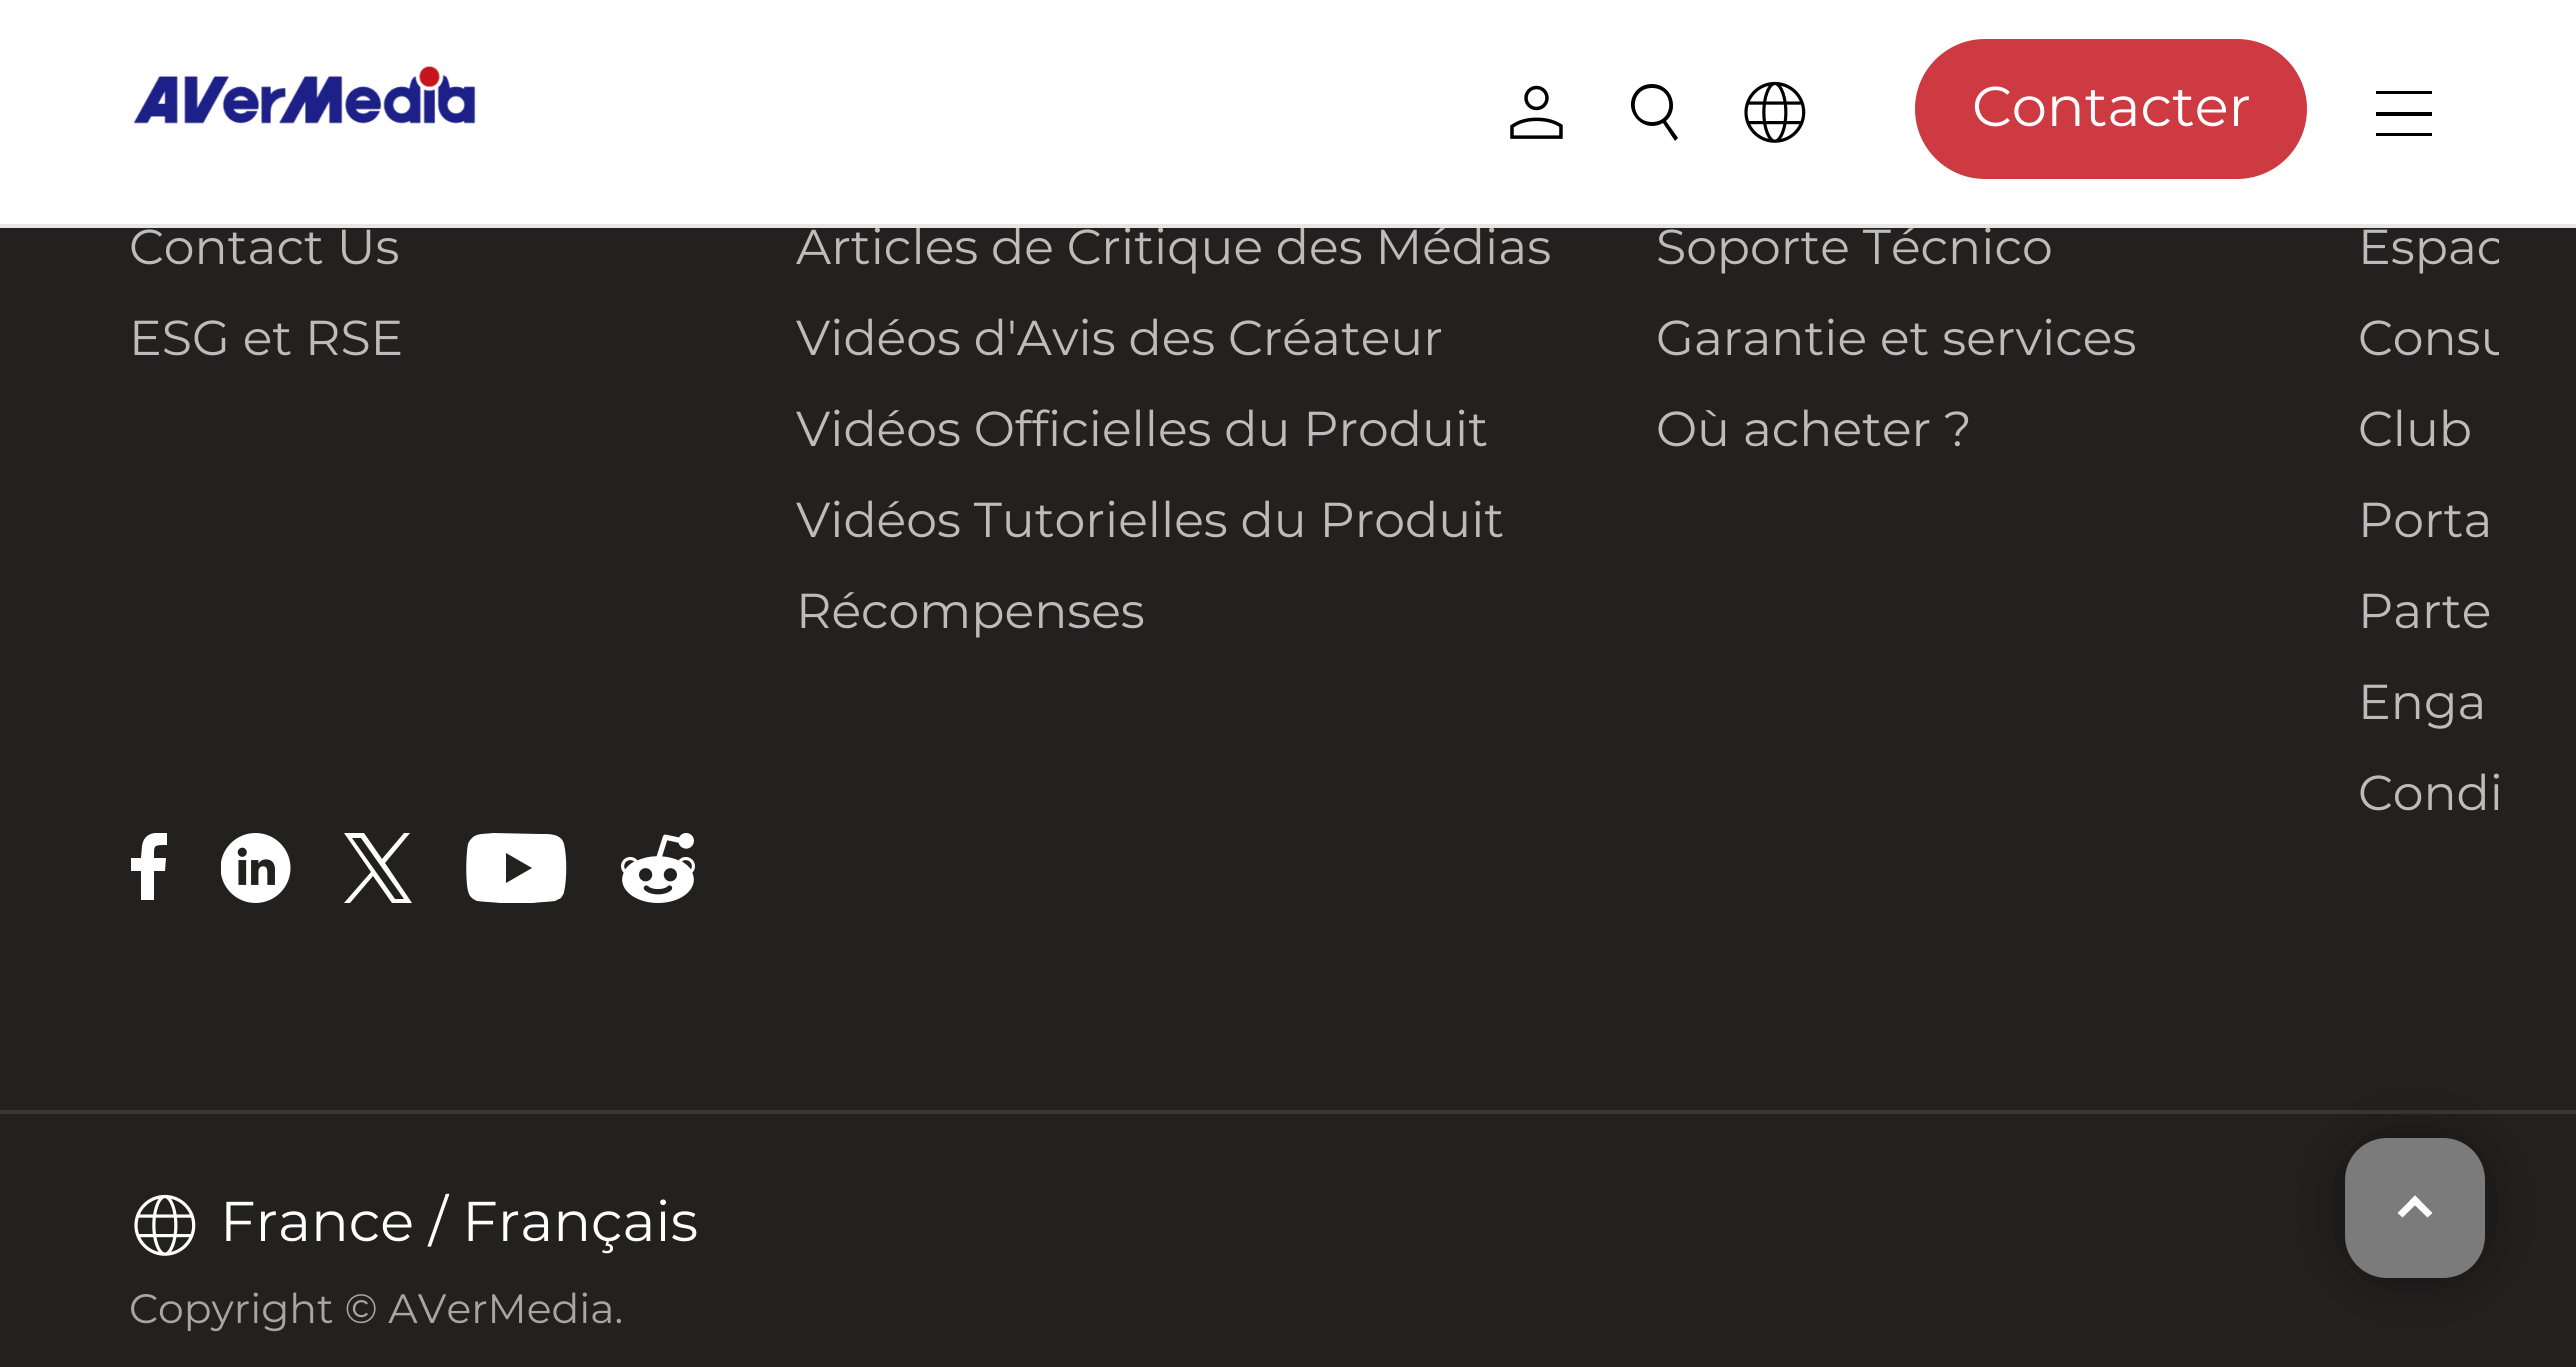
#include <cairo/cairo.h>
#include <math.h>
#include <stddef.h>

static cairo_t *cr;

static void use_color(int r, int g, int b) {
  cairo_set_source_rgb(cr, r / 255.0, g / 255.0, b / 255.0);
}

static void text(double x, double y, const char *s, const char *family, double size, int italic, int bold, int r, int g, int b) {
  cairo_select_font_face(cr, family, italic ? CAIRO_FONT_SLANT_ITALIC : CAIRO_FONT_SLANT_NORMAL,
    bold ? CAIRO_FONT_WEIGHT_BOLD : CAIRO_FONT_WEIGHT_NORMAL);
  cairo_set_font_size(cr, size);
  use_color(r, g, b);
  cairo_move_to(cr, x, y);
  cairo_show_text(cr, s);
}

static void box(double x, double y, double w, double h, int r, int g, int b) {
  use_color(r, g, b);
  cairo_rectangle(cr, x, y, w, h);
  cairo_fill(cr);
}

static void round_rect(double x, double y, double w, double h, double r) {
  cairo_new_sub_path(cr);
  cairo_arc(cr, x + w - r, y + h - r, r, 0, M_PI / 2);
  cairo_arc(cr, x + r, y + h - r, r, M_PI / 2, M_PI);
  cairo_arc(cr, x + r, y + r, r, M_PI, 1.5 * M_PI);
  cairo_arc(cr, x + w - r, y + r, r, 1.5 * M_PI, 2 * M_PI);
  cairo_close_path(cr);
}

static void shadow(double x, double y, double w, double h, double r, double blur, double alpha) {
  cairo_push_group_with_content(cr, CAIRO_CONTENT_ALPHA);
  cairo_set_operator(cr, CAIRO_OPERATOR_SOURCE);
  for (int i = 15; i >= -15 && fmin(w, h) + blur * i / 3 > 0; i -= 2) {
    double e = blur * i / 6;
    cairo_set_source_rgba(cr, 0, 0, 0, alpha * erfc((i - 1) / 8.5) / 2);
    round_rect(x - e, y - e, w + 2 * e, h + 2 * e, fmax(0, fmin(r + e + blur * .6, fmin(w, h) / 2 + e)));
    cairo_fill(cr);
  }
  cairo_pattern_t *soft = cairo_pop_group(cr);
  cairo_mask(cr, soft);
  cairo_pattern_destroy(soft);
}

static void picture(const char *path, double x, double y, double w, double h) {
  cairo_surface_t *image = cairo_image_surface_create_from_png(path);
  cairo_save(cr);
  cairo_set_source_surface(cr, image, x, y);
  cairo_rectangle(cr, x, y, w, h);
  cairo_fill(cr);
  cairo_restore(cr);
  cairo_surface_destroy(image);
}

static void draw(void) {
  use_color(35, 32, 32);
  cairo_paint(cr);
  box(0, 0, 2576, 224, 255, 255, 255);
  picture("img_01.png", 133, 66, 343, 58);
  picture("img_02.png", 1510, 85, 53, 54);
  use_color(0, 0, 0);
  cairo_new_path(cr);
  cairo_move_to(cr, 1652, 84);
  cairo_curve_to(cr, 1672, 84, 1680, 109, 1666, 121);
  cairo_line_to(cr, 1678, 138);
  cairo_line_to(cr, 1675, 141);
  cairo_line_to(cr, 1663, 123);
  cairo_curve_to(cr, 1642, 135, 1620, 108, 1637, 90);
  cairo_curve_to(cr, 1641, 86, 1646, 84, 1652, 84);
  cairo_close_path(cr);
  cairo_move_to(cr, 1652, 88);
  cairo_curve_to(cr, 1629, 88, 1629, 122, 1652, 122);
  cairo_curve_to(cr, 1675, 122, 1675, 88, 1652, 88);
  cairo_close_path(cr);
  cairo_fill(cr);
  picture("img_03.png", 1744, 81, 62, 62);
  use_color(206, 58, 65);
  round_rect(1915, 39, 392, 140, 70);
  cairo_fill(cr);
  use_color(0, 0, 0);
  cairo_set_fill_rule(cr, CAIRO_FILL_RULE_EVEN_ODD);
  cairo_new_path(cr);
  cairo_move_to(cr, 2432, 133);
  cairo_line_to(cr, 2432, 136);
  cairo_line_to(cr, 2376, 136);
  cairo_line_to(cr, 2376, 133);
  cairo_close_path(cr);
  cairo_move_to(cr, 2432, 112);
  cairo_line_to(cr, 2432, 116);
  cairo_line_to(cr, 2376, 116);
  cairo_line_to(cr, 2376, 112);
  cairo_close_path(cr);
  cairo_move_to(cr, 2432, 91);
  cairo_line_to(cr, 2432, 94);
  cairo_line_to(cr, 2376, 94);
  cairo_line_to(cr, 2376, 91);
  cairo_close_path(cr);
  cairo_fill(cr);
  cairo_save(cr);
  cairo_set_fill_rule(cr, CAIRO_FILL_RULE_WINDING);
  cairo_rectangle(cr, 130, 833, 38, 67);
  cairo_clip(cr);
  use_color(255, 255, 255);
  cairo_new_path(cr);
  cairo_move_to(cr, 154, 903);
  cairo_line_to(cr, 154, 871);
  cairo_line_to(cr, 165, 871);
  cairo_line_to(cr, 166, 858);
  cairo_line_to(cr, 154, 858);
  cairo_curve_to(cr, 154, 845, 153, 845, 167, 845);
  cairo_line_to(cr, 167, 833);
  cairo_curve_to(cr, 156, 832, 144, 832, 142, 846);
  cairo_line_to(cr, 141, 858);
  cairo_line_to(cr, 131, 858);
  cairo_line_to(cr, 131, 871);
  cairo_line_to(cr, 141, 871);
  cairo_line_to(cr, 141, 903);
  cairo_close_path(cr);
  cairo_fill(cr);
  cairo_restore(cr);
  picture("img_04.png", 221, 833, 70, 70);
  use_color(255, 255, 255);
  cairo_set_fill_rule(cr, CAIRO_FILL_RULE_WINDING);
  cairo_new_path(cr);
  cairo_move_to(cr, 385, 863);
  cairo_line_to(cr, 410, 833);
  cairo_line_to(cr, 404, 833);
  cairo_line_to(cr, 382, 859);
  cairo_line_to(cr, 364, 833);
  cairo_line_to(cr, 344, 833);
  cairo_line_to(cr, 371, 872);
  cairo_line_to(cr, 344, 903);
  cairo_line_to(cr, 350, 903);
  cairo_line_to(cr, 373, 876);
  cairo_line_to(cr, 392, 903);
  cairo_line_to(cr, 412, 903);
  cairo_close_path(cr);
  cairo_move_to(cr, 376, 872);
  cairo_line_to(cr, 352, 838);
  cairo_line_to(cr, 361, 838);
  cairo_line_to(cr, 404, 899);
  cairo_line_to(cr, 395, 899);
  cairo_close_path(cr);
  cairo_fill(cr);
  cairo_new_path(cr);
  cairo_move_to(cr, 564, 844);
  cairo_curve_to(cr, 561, 833, 548, 834, 540, 834);
  cairo_line_to(cr, 493, 833);
  cairo_curve_to(cr, 487, 834, 478, 833, 473, 837);
  cairo_curve_to(cr, 471, 839, 469, 841, 468, 844);
  cairo_curve_to(cr, 466, 853, 465, 885, 469, 894);
  cairo_curve_to(cr, 470, 897, 474, 900, 477, 901);
  cairo_curve_to(cr, 484, 902, 492, 902, 500, 903);
  cairo_line_to(cr, 533, 903);
  cairo_curve_to(cr, 540, 902, 548, 902, 555, 901);
  cairo_curve_to(cr, 557, 900, 559, 899, 561, 898);
  cairo_curve_to(cr, 562, 896, 564, 894, 564, 892);
  cairo_curve_to(cr, 567, 880, 567, 856, 564, 844);
  cairo_close_path(cr);
  cairo_move_to(cr, 506, 883);
  cairo_line_to(cr, 506, 853);
  cairo_line_to(cr, 532, 868);
  cairo_close_path(cr);
  cairo_fill(cr);
  picture("img_05.png", 621, 833, 74, 70);
  box(0, 1110, 2576, 4, 57, 54, 54);
  picture("img_06.png", 134, 1194, 62, 62);
  use_color(0, 0, 0);
  shadow(2345, 1138, 140, 140, 42, 26, 0.4);
  use_color(123, 123, 123);
  round_rect(2345, 1138, 140, 140, 42);
  cairo_fill(cr);
  use_color(255, 255, 255);
  cairo_new_path(cr);
  cairo_move_to(cr, 2402.5, 1217.5);
  cairo_line_to(cr, 2397.5, 1213);
  cairo_line_to(cr, 2415, 1195.5);
  cairo_line_to(cr, 2420, 1200.5);
  cairo_close_path(cr);
  cairo_fill(cr);
  cairo_new_path(cr);
  cairo_move_to(cr, 2427.5, 1217.5);
  cairo_line_to(cr, 2410, 1200.5);
  cairo_line_to(cr, 2415, 1195.5);
  cairo_line_to(cr, 2432.5, 1213);
  cairo_close_path(cr);
  cairo_fill(cr);
  text(1972, 126, "Contacter", "Montserrat", 56, 0, 0, 255, 255, 255);
  text(129, 264, "Contact Us", "Montserrat", 49, 0, 0, 189, 188, 188);
  text(129, 355, "ESG et RSE", "Montserrat", 49, 0, 0, 189, 188, 188);
  text(796, 264, "Articles de Critique des Médias", "Montserrat", 49, 0, 0, 189, 188, 188);
  text(796, 355, "Vidéos d'Avis des Créateur", "Montserrat", 49, 0, 0, 189, 188, 188);
  text(796, 446, "Vidéos Officielles du Produit", "Montserrat", 49, 0, 0, 189, 188, 188);
  text(796, 537, "Vidéos Tutorielles du Produit", "Montserrat", 49, 0, 0, 189, 188, 188);
  text(796, 628, "Récompenses", "Montserrat", 49, 0, 0, 189, 188, 188);
  text(1656, 264, "Soporte Técnico", "Montserrat", 49, 0, 0, 189, 188, 188);
  box(0, 224, 2576, 4, 230, 230, 230);
  text(1656, 355, "Garantie et services", "Montserrat", 49, 0, 0, 189, 188, 188);
  text(1656, 446, "Où acheter ?", "Montserrat", 49, 0, 0, 189, 188, 188);
  cairo_save(cr);
  cairo_rectangle(cr, 77, 14, 2422, 889);
  cairo_clip(cr);
  text(2358, 264, "Espac", "Montserrat", 49, 0, 0, 189, 188, 188);
  text(2358, 355, "Consu", "Montserrat", 49, 0, 0, 189, 188, 188);
  cairo_restore(cr);
  text(2358, 446, "Club", "Montserrat", 49, 0, 0, 189, 188, 188);
  text(2358, 537, "Porta", "Montserrat", 49, 0, 0, 189, 188, 188);
  text(2358, 628, "Parte", "Montserrat", 49, 0, 0, 189, 188, 188);
  text(2358, 719, "Enga", "Montserrat", 49, 0, 0, 189, 188, 188);
  text(2358, 810, "Condi", "Montserrat", 49, 0, 0, 189, 188, 188);
  text(220, 1241, "France / Français", "Montserrat", 56, 0, 0, 255, 255, 255);
  text(129, 1323, "Copyright © AVerMedia.", "Montserrat", 41, 0, 0, 167, 166, 166);
}

int main(void) {
  cairo_surface_t *surface = cairo_image_surface_create(CAIRO_FORMAT_RGB24, 2576, 1367);
  cr = cairo_create(surface);
  cairo_font_options_t *options = cairo_font_options_create();
  cairo_font_options_set_hint_metrics(options, CAIRO_HINT_METRICS_OFF);
  cairo_font_options_set_hint_style(options, CAIRO_HINT_STYLE_NONE);
  cairo_set_font_options(cr, options);
  cairo_set_miter_limit(cr, 4);
  draw();
  cairo_surface_write_to_png(surface, "out.png");
  cairo_font_options_destroy(options);
  cairo_destroy(cr);
  cairo_surface_destroy(surface);
  return 0;
}
